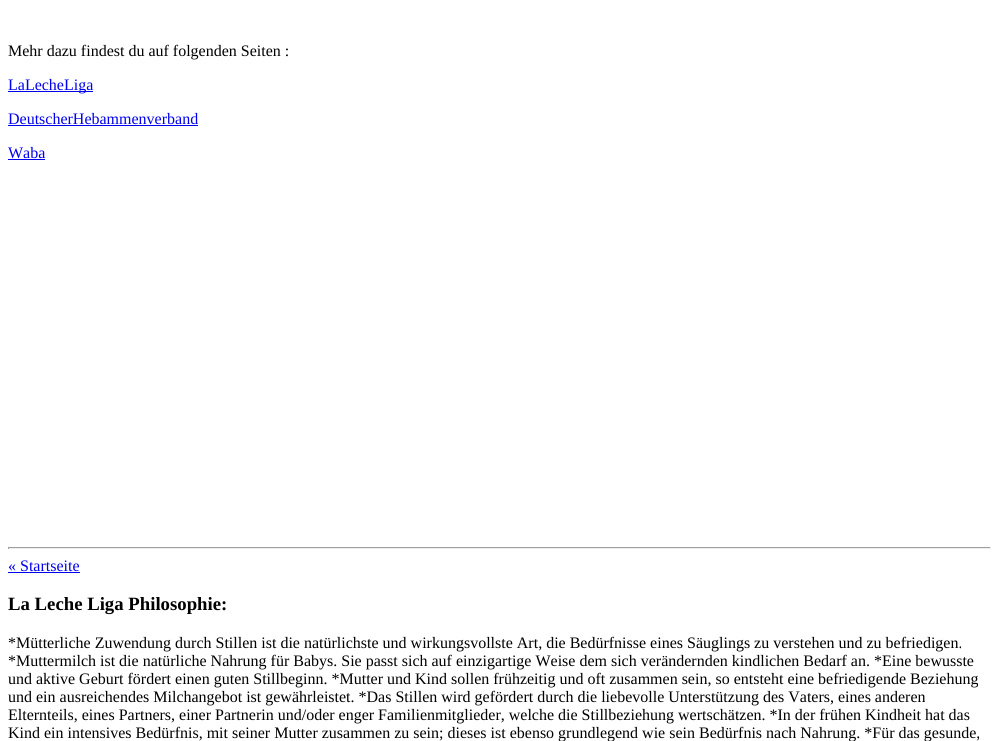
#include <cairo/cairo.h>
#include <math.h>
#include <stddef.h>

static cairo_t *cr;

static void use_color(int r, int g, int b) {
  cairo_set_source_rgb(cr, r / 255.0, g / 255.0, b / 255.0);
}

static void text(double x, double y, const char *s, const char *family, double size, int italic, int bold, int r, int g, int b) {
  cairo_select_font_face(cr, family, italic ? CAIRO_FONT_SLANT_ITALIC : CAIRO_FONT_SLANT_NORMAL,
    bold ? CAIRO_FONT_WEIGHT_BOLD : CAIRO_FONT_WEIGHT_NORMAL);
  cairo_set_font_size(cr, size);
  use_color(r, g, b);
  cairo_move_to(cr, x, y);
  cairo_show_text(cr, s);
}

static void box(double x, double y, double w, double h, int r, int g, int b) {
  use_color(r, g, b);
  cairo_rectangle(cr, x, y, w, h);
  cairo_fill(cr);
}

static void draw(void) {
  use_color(255, 255, 255);
  cairo_paint(cr);
  box(8, 91, 85, 1, 0, 0, 238);
  box(8, 125, 190, 1, 0, 0, 238);
  box(8, 159, 37, 1, 0, 0, 238);
  box(8, 547, 983, 1, 159, 159, 159);
  box(990, 547, 1, 2, 238, 238, 238);
  box(8, 548, 983, 1, 238, 238, 238);
  box(8, 547, 1, 2, 159, 159, 159);
  box(8, 572, 72, 1, 0, 0, 238);
  text(8, 56, "Mehr dazu findest du auf folgenden Seiten :", "Liberation Serif", 16, 0, 0, 0, 0, 0);
  text(8, 90, "LaLecheLiga", "Liberation Serif", 16, 0, 0, 0, 0, 238);
  text(8, 124, "DeutscherHebammenverband", "Liberation Serif", 16, 0, 0, 0, 0, 238);
  text(8, 158, "Waba", "Liberation Serif", 16, 0, 0, 0, 0, 238);
  text(8, 571, "« Startseite", "Liberation Serif", 16, 0, 0, 0, 0, 238);
  text(8, 610, "La Leche Liga Philosophie:", "Liberation Serif", 18.75, 0, 1, 0, 0, 0);
  text(8, 648, "*Mütterliche Zuwendung durch Stillen ist die natürlichste und wirkungsvollste Art, die Bedürfnisse eines Säuglings zu verstehen und zu befriedigen.", "Liberation Serif", 16, 0, 0, 0, 0, 0);
  text(8, 666, "*Muttermilch ist die natürliche Nahrung für Babys. Sie passt sich auf einzigartige Weise dem sich verändernden kindlichen Bedarf an. *Eine bewusste", "Liberation Serif", 16, 0, 0, 0, 0, 0);
  text(8, 684, "und aktive Geburt fördert einen guten Stillbeginn. *Mutter und Kind sollen frühzeitig und oft zusammen sein, so entsteht eine befriedigende Beziehung", "Liberation Serif", 16, 0, 0, 0, 0, 0);
  text(8, 702, "und ein ausreichendes Milchangebot ist gewährleistet. *Das Stillen wird gefördert durch die liebevolle Unterstützung des Vaters, eines anderen", "Liberation Serif", 16, 0, 0, 0, 0, 0);
  text(8, 720, "Elternteils, eines Partners, einer Partnerin und/oder enger Familienmitglieder, welche die Stillbeziehung wertschätzen. *In der frühen Kindheit hat das", "Liberation Serif", 16, 0, 0, 0, 0, 0);
  text(8, 738, "Kind ein intensives Bedürfnis, mit seiner Mutter zusammen zu sein; dieses ist ebenso grundlegend wie sein Bedürfnis nach Nahrung. *Für das gesunde,", "Liberation Serif", 16, 0, 0, 0, 0, 0);
}

int main(void) {
  cairo_surface_t *surface = cairo_image_surface_create(CAIRO_FORMAT_RGB24, 999, 741);
  cr = cairo_create(surface);
  cairo_font_options_t *options = cairo_font_options_create();
  cairo_font_options_set_hint_metrics(options, CAIRO_HINT_METRICS_OFF);
  cairo_font_options_set_hint_style(options, CAIRO_HINT_STYLE_NONE);
  cairo_set_font_options(cr, options);
  cairo_set_miter_limit(cr, 4);
  draw();
  cairo_surface_write_to_png(surface, "out.png");
  cairo_font_options_destroy(options);
  cairo_destroy(cr);
  cairo_surface_destroy(surface);
  return 0;
}
